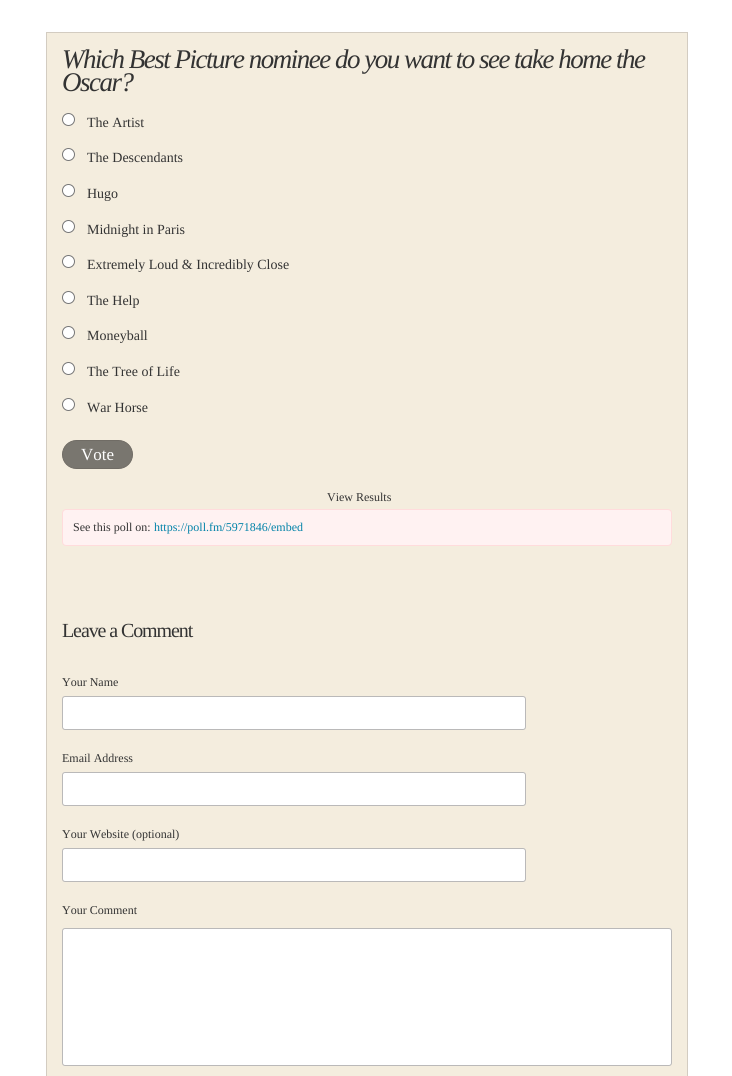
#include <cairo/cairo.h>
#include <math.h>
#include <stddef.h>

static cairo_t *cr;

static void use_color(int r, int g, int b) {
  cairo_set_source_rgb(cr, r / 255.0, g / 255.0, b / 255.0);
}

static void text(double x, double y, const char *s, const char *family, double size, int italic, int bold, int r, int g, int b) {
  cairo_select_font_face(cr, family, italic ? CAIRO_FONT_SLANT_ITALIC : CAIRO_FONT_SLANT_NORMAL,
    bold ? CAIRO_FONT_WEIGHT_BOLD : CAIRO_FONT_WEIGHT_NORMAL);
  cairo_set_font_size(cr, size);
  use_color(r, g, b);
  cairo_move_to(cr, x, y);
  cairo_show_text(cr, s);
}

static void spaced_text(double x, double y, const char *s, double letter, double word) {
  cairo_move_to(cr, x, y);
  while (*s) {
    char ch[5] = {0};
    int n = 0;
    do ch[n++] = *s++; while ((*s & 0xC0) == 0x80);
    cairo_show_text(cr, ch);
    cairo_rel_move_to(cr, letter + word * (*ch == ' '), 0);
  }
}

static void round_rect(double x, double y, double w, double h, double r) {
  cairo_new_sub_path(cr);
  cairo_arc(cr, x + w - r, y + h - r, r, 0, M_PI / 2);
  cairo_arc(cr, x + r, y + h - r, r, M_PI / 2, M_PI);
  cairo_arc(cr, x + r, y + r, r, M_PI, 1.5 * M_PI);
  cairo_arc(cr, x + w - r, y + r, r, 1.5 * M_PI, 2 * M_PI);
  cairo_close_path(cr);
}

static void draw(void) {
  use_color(255, 255, 255);
  cairo_paint(cr);
  use_color(244, 237, 222);
  cairo_rectangle(cr, 46.5, 32.5, 641, 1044);
  cairo_fill_preserve(cr);
  use_color(211, 204, 193);
  cairo_set_line_width(cr, 1);
  cairo_stroke(cr);
  use_color(255, 255, 255);
  cairo_arc(cr, 68.5, 119.5, 6, 0, 2 * M_PI);
  cairo_fill_preserve(cr);
  use_color(118, 118, 118);
  cairo_stroke(cr);
  use_color(255, 255, 255);
  cairo_arc(cr, 68.5, 154.5, 6, 0, 2 * M_PI);
  cairo_fill_preserve(cr);
  use_color(118, 118, 118);
  cairo_stroke(cr);
  use_color(255, 255, 255);
  cairo_arc(cr, 68.5, 190.5, 6, 0, 2 * M_PI);
  cairo_fill_preserve(cr);
  use_color(118, 118, 118);
  cairo_stroke(cr);
  use_color(255, 255, 255);
  cairo_arc(cr, 68.5, 226.5, 6, 0, 2 * M_PI);
  cairo_fill_preserve(cr);
  use_color(118, 118, 118);
  cairo_stroke(cr);
  use_color(255, 255, 255);
  cairo_arc(cr, 68.5, 261.5, 6, 0, 2 * M_PI);
  cairo_fill_preserve(cr);
  use_color(118, 118, 118);
  cairo_stroke(cr);
  use_color(255, 255, 255);
  cairo_arc(cr, 68.5, 297.5, 6, 0, 2 * M_PI);
  cairo_fill_preserve(cr);
  use_color(118, 118, 118);
  cairo_stroke(cr);
  use_color(255, 255, 255);
  cairo_arc(cr, 68.5, 332.5, 6, 0, 2 * M_PI);
  cairo_fill_preserve(cr);
  use_color(118, 118, 118);
  cairo_stroke(cr);
  use_color(255, 255, 255);
  cairo_arc(cr, 68.5, 368.5, 6, 0, 2 * M_PI);
  cairo_fill_preserve(cr);
  use_color(118, 118, 118);
  cairo_stroke(cr);
  use_color(255, 255, 255);
  cairo_arc(cr, 68.5, 404.5, 6, 0, 2 * M_PI);
  cairo_fill_preserve(cr);
  use_color(118, 118, 118);
  cairo_stroke(cr);
  use_color(121, 118, 111);
  round_rect(62.5, 440.5, 70, 28, 14);
  cairo_fill_preserve(cr);
  use_color(112, 108, 101);
  cairo_stroke(cr);
  use_color(255, 242, 242);
  round_rect(62.5, 509.5, 609, 36, 3.5);
  cairo_fill_preserve(cr);
  use_color(255, 220, 220);
  cairo_stroke(cr);
  use_color(255, 255, 255);
  round_rect(62.5, 696.5, 463, 33, 2.5);
  cairo_fill_preserve(cr);
  use_color(186, 185, 185);
  cairo_stroke(cr);
  use_color(255, 255, 255);
  round_rect(62.5, 772.5, 463, 33, 2.5);
  cairo_fill_preserve(cr);
  use_color(186, 185, 185);
  cairo_stroke(cr);
  use_color(255, 255, 255);
  round_rect(62.5, 848.5, 463, 33, 2.5);
  cairo_fill_preserve(cr);
  use_color(186, 185, 185);
  cairo_stroke(cr);
  use_color(255, 255, 255);
  round_rect(62.5, 928.5, 609, 137, 2.5);
  cairo_fill_preserve(cr);
  use_color(186, 185, 185);
  cairo_stroke(cr);
  cairo_select_font_face(cr, "Liberation Serif", CAIRO_FONT_SLANT_ITALIC, CAIRO_FONT_WEIGHT_NORMAL);
  cairo_set_font_size(cr, 27);
  use_color(51, 51, 51);
  spaced_text(62, 68, "Which Best Picture nominee do you want to see take home the", -1.5, 0);
  spaced_text(62, 91, "Oscar?", -1.5, 0);
  text(87, 127, "The Artist", "Liberation Serif", 14, 0, 0, 51, 51, 51);
  text(87, 162, "The Descendants", "Liberation Serif", 14, 0, 0, 51, 51, 51);
  text(87, 198, "Hugo", "Liberation Serif", 14, 0, 0, 51, 51, 51);
  text(87, 234, "Midnight in Paris", "Liberation Serif", 14, 0, 0, 51, 51, 51);
  text(87, 269, "Extremely Loud & Incredibly Close", "Liberation Serif", 14, 0, 0, 51, 51, 51);
  text(87, 305, "The Help", "Liberation Serif", 14, 0, 0, 51, 51, 51);
  text(87, 340, "Moneyball", "Liberation Serif", 14, 0, 0, 51, 51, 51);
  text(87, 376, "The Tree of Life", "Liberation Serif", 14, 0, 0, 51, 51, 51);
  text(87, 412, "War Horse", "Liberation Serif", 14, 0, 0, 51, 51, 51);
  text(81, 460, "Vote", "Liberation Serif", 17, 0, 0, 255, 255, 255);
  text(327, 501, "View Results", "Liberation Serif", 12, 0, 0, 51, 51, 51);
  text(73, 531, "See this poll on:", "Liberation Serif", 12, 0, 0, 51, 51, 51);
  text(154, 531, "https://poll.fm/5971846/embed", "Liberation Serif", 12, 0, 0, 1, 130, 168);
  cairo_set_font_size(cr, 20);
  use_color(51, 51, 51);
  spaced_text(62, 637, "Leave a Comment", -1.1, 0);
  text(62, 686, "Your Name", "Liberation Serif", 12, 0, 0, 51, 51, 51);
  text(62, 762, "Email Address", "Liberation Serif", 12, 0, 0, 51, 51, 51);
  text(62, 838, "Your Website (optional)", "Liberation Serif", 12, 0, 0, 51, 51, 51);
  text(62, 914, "Your Comment", "Liberation Serif", 12, 0, 0, 51, 51, 51);
}

int main(void) {
  cairo_surface_t *surface = cairo_image_surface_create(CAIRO_FORMAT_RGB24, 732, 1076);
  cr = cairo_create(surface);
  cairo_font_options_t *options = cairo_font_options_create();
  cairo_font_options_set_hint_metrics(options, CAIRO_HINT_METRICS_OFF);
  cairo_font_options_set_hint_style(options, CAIRO_HINT_STYLE_NONE);
  cairo_set_font_options(cr, options);
  cairo_set_miter_limit(cr, 4);
  draw();
  cairo_surface_write_to_png(surface, "out.png");
  cairo_font_options_destroy(options);
  cairo_destroy(cr);
  cairo_surface_destroy(surface);
  return 0;
}
